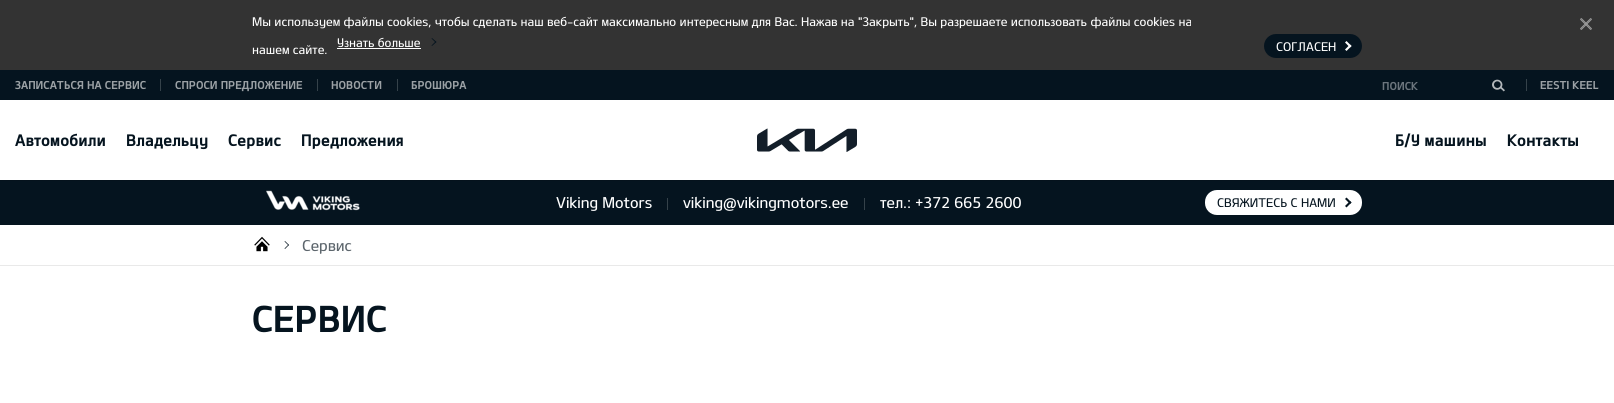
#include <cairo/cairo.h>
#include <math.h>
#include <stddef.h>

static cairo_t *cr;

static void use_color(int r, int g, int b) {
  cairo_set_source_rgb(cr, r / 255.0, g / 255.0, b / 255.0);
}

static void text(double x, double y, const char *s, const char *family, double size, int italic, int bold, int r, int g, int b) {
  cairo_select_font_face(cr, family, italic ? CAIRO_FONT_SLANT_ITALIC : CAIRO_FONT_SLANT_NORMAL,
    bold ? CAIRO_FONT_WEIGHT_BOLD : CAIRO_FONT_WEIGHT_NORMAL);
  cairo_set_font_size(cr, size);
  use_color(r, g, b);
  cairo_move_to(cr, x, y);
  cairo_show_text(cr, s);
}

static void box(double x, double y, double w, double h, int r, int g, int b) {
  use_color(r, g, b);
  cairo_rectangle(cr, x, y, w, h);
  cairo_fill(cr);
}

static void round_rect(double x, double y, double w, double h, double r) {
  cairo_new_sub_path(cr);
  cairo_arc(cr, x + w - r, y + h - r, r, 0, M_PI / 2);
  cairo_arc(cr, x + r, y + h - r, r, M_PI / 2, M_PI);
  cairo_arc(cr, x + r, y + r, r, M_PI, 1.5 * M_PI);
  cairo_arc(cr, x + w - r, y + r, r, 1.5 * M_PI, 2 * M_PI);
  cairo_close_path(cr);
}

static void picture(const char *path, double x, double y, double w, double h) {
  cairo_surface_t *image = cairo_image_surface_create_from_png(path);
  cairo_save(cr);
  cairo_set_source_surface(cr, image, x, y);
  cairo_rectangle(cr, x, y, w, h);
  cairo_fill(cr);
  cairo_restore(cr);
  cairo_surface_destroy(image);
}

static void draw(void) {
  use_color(255, 255, 255);
  cairo_paint(cr);
  box(0, 0, 1614, 70, 51, 51, 51);
  box(337, 48, 84, 1, 255, 255, 255);
  use_color(5, 20, 31);
  cairo_new_path(cr);
  cairo_move_to(cr, 432, 38);
  cairo_line_to(cr, 436.5, 42);
  cairo_line_to(cr, 435.5, 42.5);
  cairo_line_to(cr, 431.5, 38.5);
  cairo_close_path(cr);
  cairo_fill(cr);
  cairo_new_path(cr);
  cairo_move_to(cr, 435.5, 41.5);
  cairo_line_to(cr, 436.5, 42);
  cairo_line_to(cr, 432, 46);
  cairo_line_to(cr, 431.5, 45.5);
  cairo_close_path(cr);
  cairo_fill(cr);
  round_rect(1264, 34, 98, 24, 12);
  cairo_fill(cr);
  use_color(255, 255, 255);
  cairo_new_path(cr);
  cairo_move_to(cr, 1346.5, 41);
  cairo_line_to(cr, 1351.5, 46);
  cairo_line_to(cr, 1350, 47.5);
  cairo_line_to(cr, 1345, 42.5);
  cairo_close_path(cr);
  cairo_fill(cr);
  cairo_new_path(cr);
  cairo_move_to(cr, 1350, 44.5);
  cairo_line_to(cr, 1351.5, 46);
  cairo_line_to(cr, 1346.5, 51);
  cairo_line_to(cr, 1345, 49.5);
  cairo_close_path(cr);
  cairo_fill(cr);
  use_color(153, 153, 153);
  cairo_new_path(cr);
  cairo_move_to(cr, 1580, 28.5);
  cairo_line_to(cr, 1590.5, 18);
  cairo_line_to(cr, 1591.5, 18.5);
  cairo_line_to(cr, 1580.5, 29.5);
  cairo_close_path(cr);
  cairo_fill(cr);
  cairo_new_path(cr);
  cairo_move_to(cr, 1580.5, 29.5);
  cairo_line_to(cr, 1591.5, 18.5);
  cairo_line_to(cr, 1592, 19.5);
  cairo_line_to(cr, 1581.5, 30);
  cairo_close_path(cr);
  cairo_fill(cr);
  cairo_new_path(cr);
  cairo_move_to(cr, 1581.5, 18);
  cairo_line_to(cr, 1592, 28.5);
  cairo_line_to(cr, 1591.5, 29.5);
  cairo_line_to(cr, 1580.5, 18.5);
  cairo_close_path(cr);
  cairo_fill(cr);
  cairo_new_path(cr);
  cairo_move_to(cr, 1580.5, 18.5);
  cairo_line_to(cr, 1591.5, 29.5);
  cairo_line_to(cr, 1590.5, 30);
  cairo_line_to(cr, 1580, 19.5);
  cairo_close_path(cr);
  cairo_fill(cr);
  box(0, 180, 1614, 1, 5, 18, 28);
  box(0, 70, 1614, 30, 5, 20, 31);
  box(160, 79, 1, 12, 53, 66, 74);
  box(317, 79, 1, 12, 53, 66, 74);
  box(397, 79, 1, 12, 53, 66, 74);
  picture("img_01.png", 1492, 79, 13, 13);
  box(1526, 79, 1, 12, 53, 66, 74);
  picture("img_02.png", 757, 128, 100, 24);
  box(0, 181, 1614, 44, 5, 20, 31);
  picture("img_03.png", 266, 190, 94, 21);
  box(667, 198, 1, 12, 53, 66, 74);
  box(864, 198, 1, 12, 53, 66, 74);
  use_color(255, 255, 255);
  round_rect(1205, 190, 157, 25, 12);
  cairo_fill(cr);
  use_color(5, 20, 31);
  cairo_new_path(cr);
  cairo_move_to(cr, 1346.5, 197.5);
  cairo_line_to(cr, 1351.5, 202.5);
  cairo_line_to(cr, 1350, 204);
  cairo_line_to(cr, 1345, 199);
  cairo_close_path(cr);
  cairo_fill(cr);
  cairo_new_path(cr);
  cairo_move_to(cr, 1350, 201);
  cairo_line_to(cr, 1351.5, 202.5);
  cairo_line_to(cr, 1346.5, 207.5);
  cairo_line_to(cr, 1345, 206);
  cairo_close_path(cr);
  cairo_fill(cr);
  box(0, 265, 1614, 1, 233, 233, 233);
  picture("img_04.png", 254, 236, 16, 16);
  use_color(5, 20, 31);
  cairo_new_path(cr);
  cairo_move_to(cr, 285, 241);
  cairo_line_to(cr, 289, 245);
  cairo_line_to(cr, 288.5, 245.5);
  cairo_line_to(cr, 284.5, 241.5);
  cairo_close_path(cr);
  cairo_fill(cr);
  cairo_new_path(cr);
  cairo_move_to(cr, 288.5, 244.5);
  cairo_line_to(cr, 289, 245);
  cairo_line_to(cr, 285, 249);
  cairo_line_to(cr, 284.5, 248.5);
  cairo_close_path(cr);
  cairo_fill(cr);
  text(252, 26, "Мы используем файлы cookies, чтобы сделать наш веб-сайт максимально интересным для Вас. Нажав на \"Закрыть\", Вы разрешаете использовать файлы cookies на", "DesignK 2", 12, 0, 0, 255, 255, 255);
  text(337, 47, "Узнать больше", "DesignK 2", 12, 0, 0, 255, 255, 255);
  text(252, 54, "нашем сайте.", "DesignK 2", 12, 0, 0, 255, 255, 255);
  text(1276, 51, "СОГЛАСЕН", "DesignK 2", 12, 0, 0, 255, 255, 255);
  text(15, 89, "ЗАПИСАТЬСЯ НА СЕРВИС", "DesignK", 11, 0, 0, 155, 161, 165);
  text(175, 89, "СПРОСИ ПРЕДЛОЖЕНИЕ", "DesignK", 11, 0, 0, 155, 161, 165);
  text(331, 89, "НОВОСТИ", "DesignK", 11, 0, 0, 155, 161, 165);
  text(411, 89, "БРОШЮРА", "DesignK", 11, 0, 0, 155, 161, 165);
  text(1382, 90, "ПОИСК", "DesignK", 11, 0, 0, 108, 117, 125);
  text(1540, 89, "EESTI KEEL", "DesignK", 11, 0, 0, 155, 161, 165);
  text(15, 146, "Автомобили", "DesignK", 16, 0, 0, 5, 20, 31);
  text(126, 146, "Владельцу", "DesignK", 16, 0, 0, 5, 20, 31);
  text(228, 146, "Сервис", "DesignK", 16, 0, 0, 5, 20, 31);
  text(301, 146, "Предложения", "DesignK", 16, 0, 0, 5, 20, 31);
  text(1395, 146, "Б/У машины", "DesignK", 16, 0, 0, 5, 20, 31);
  text(1507, 146, "Контакты", "DesignK", 16, 0, 0, 5, 20, 31);
  text(556, 208, "Viking Motors", "DesignK 2", 15, 0, 0, 255, 255, 255);
  text(683, 208, "viking@vikingmotors.ee", "DesignK 2", 15, 0, 0, 255, 255, 255);
  text(880, 208, "тел.: +372 665 2600", "DesignK 2", 15, 0, 0, 255, 255, 255);
  text(1217, 207, "СВЯЖИТЕСЬ С НАМИ", "DesignK 2", 12, 0, 0, 5, 20, 31);
  text(302, 251, "Сервис", "DesignK 2", 15, 0, 0, 93, 102, 109);
  text(252, 332, "СЕРВИС", "DesignK", 36, 0, 0, 5, 20, 31);
}

int main(void) {
  cairo_surface_t *surface = cairo_image_surface_create(CAIRO_FORMAT_RGB24, 1614, 403);
  cr = cairo_create(surface);
  cairo_font_options_t *options = cairo_font_options_create();
  cairo_font_options_set_hint_metrics(options, CAIRO_HINT_METRICS_OFF);
  cairo_font_options_set_hint_style(options, CAIRO_HINT_STYLE_NONE);
  cairo_set_font_options(cr, options);
  cairo_set_miter_limit(cr, 4);
  draw();
  cairo_surface_write_to_png(surface, "out.png");
  cairo_font_options_destroy(options);
  cairo_destroy(cr);
  cairo_surface_destroy(surface);
  return 0;
}
